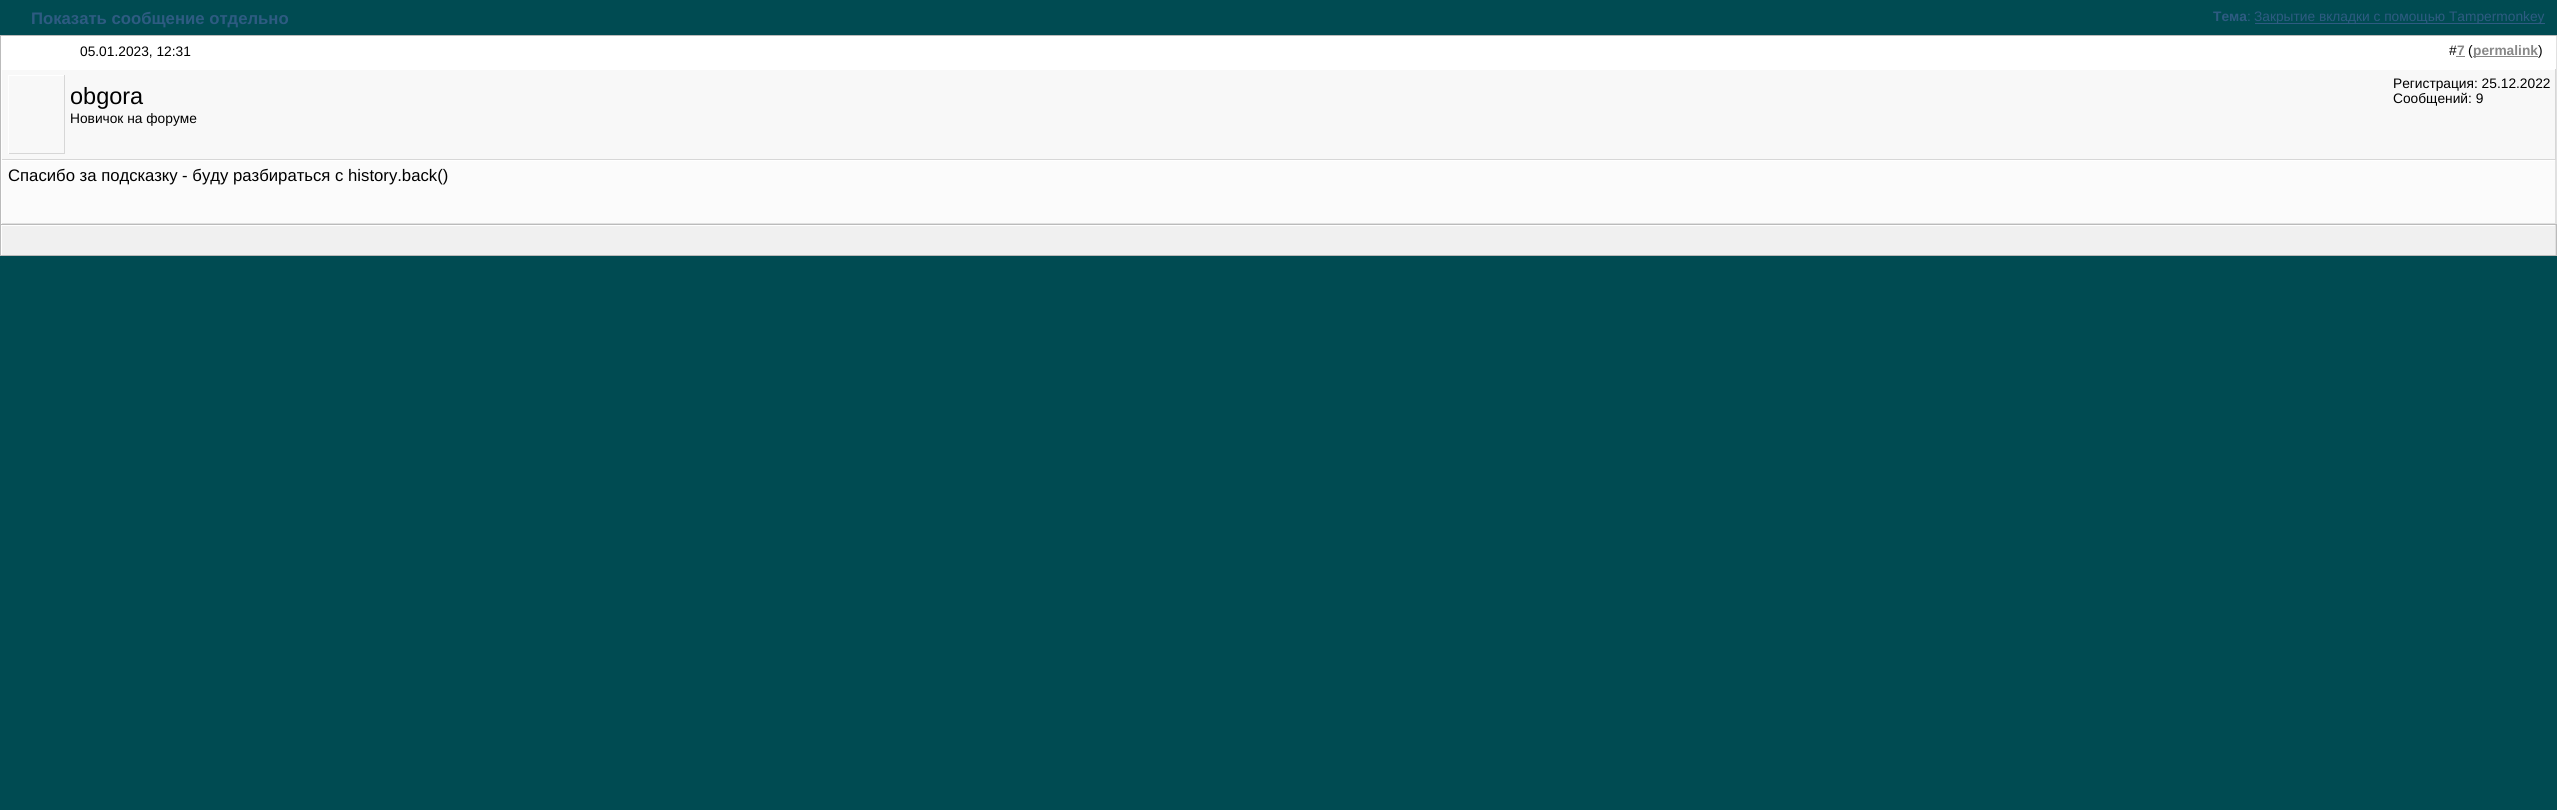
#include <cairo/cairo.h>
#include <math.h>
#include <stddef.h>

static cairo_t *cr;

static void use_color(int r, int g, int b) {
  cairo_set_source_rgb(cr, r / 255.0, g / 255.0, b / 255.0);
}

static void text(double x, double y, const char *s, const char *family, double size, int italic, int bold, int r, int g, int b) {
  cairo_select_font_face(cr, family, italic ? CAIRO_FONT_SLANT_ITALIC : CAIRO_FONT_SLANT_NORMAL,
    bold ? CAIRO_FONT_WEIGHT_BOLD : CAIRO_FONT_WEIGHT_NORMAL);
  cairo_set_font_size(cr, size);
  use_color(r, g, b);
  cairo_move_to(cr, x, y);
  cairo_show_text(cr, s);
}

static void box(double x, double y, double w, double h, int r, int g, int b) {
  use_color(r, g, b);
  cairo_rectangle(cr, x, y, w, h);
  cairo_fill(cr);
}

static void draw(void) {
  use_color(0, 75, 82);
  cairo_paint(cr);
  box(2255, 23, 290, 1, 46, 91, 130);
  box(2556, 36, 1, 188, 225, 225, 225);
  cairo_rectangle(cr, 0.5, 35.5, 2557, 189);
  use_color(187, 187, 187);
  cairo_set_line_width(cr, 1);
  cairo_stroke(cr);
  box(1, 36, 2555, 34, 255, 255, 255);
  box(2456, 56, 9, 1, 136, 136, 136);
  box(2473, 56, 65, 1, 136, 136, 136);
  box(2, 70, 2553, 89, 248, 248, 248);
  box(2555, 69, 1, 91, 215, 215, 215);
  box(1, 159, 2555, 1, 215, 215, 215);
  box(1, 69, 1, 91, 255, 255, 255);
  box(8, 75, 57, 1, 255, 255, 255);
  box(64, 75, 1, 79, 215, 215, 215);
  box(8, 153, 57, 1, 215, 215, 215);
  box(8, 75, 1, 79, 255, 255, 255);
  box(2, 161, 2553, 62, 251, 251, 251);
  box(1, 160, 2555, 1, 255, 255, 255);
  box(2555, 160, 1, 64, 224, 224, 224);
  box(1, 223, 2555, 1, 224, 224, 224);
  box(1, 160, 1, 64, 255, 255, 255);
  box(2556, 225, 1, 31, 187, 187, 187);
  box(0, 255, 2557, 1, 187, 187, 187);
  box(0, 225, 1, 31, 187, 187, 187);
  box(2, 226, 2553, 29, 240, 240, 240);
  box(1, 225, 2555, 1, 255, 255, 255);
  box(2555, 225, 1, 30, 224, 224, 224);
  box(1, 225, 1, 30, 255, 255, 255);
  text(31, 24, "Показать сообщение отдельно", "Liberation Sans", 16.7, 0, 1, 46, 91, 130);
  text(2213, 21, "Тема", "Liberation Sans", 13.75, 0, 1, 46, 91, 130);
  text(2247, 21, ":", "Liberation Sans", 13.75, 0, 0, 46, 91, 130);
  text(2254, 21, "Закрытие вкладки с помощью Tampermonkey", "Liberation Sans", 13.75, 0, 0, 46, 91, 130);
  text(80, 56, "05.01.2023, 12:31", "Liberation Sans", 13.75, 0, 0, 0, 0, 0);
  text(2449, 55, "#", "Liberation Sans", 13.75, 0, 0, 0, 0, 0);
  text(2457, 55, "7", "Liberation Sans", 13.75, 0, 1, 136, 136, 136);
  text(2468, 55, "(", "Liberation Sans", 13.75, 0, 0, 0, 0, 0);
  text(2473, 55, "permalink", "Liberation Sans", 13.75, 0, 1, 136, 136, 136);
  text(2538, 55, ")", "Liberation Sans", 13.75, 0, 0, 0, 0, 0);
  text(70, 104, "obgora", "Liberation Sans", 23.5, 0, 0, 0, 0, 0);
  text(70, 123, "Новичок на форуме", "Liberation Sans", 13.75, 0, 0, 0, 0, 0);
  text(2393, 88, "Регистрация: 25.12.2022", "Liberation Sans", 13.75, 0, 0, 0, 0, 0);
  text(2393, 103, "Сообщений: 9", "Liberation Sans", 13.75, 0, 0, 0, 0, 0);
  text(8, 181, "Спасибо за подсказку - буду разбираться с history.back()", "Liberation Sans", 16.7, 0, 0, 0, 0, 0);
}

int main(void) {
  cairo_surface_t *surface = cairo_image_surface_create(CAIRO_FORMAT_RGB24, 2557, 810);
  cr = cairo_create(surface);
  cairo_font_options_t *options = cairo_font_options_create();
  cairo_font_options_set_hint_metrics(options, CAIRO_HINT_METRICS_OFF);
  cairo_font_options_set_hint_style(options, CAIRO_HINT_STYLE_NONE);
  cairo_set_font_options(cr, options);
  cairo_set_miter_limit(cr, 4);
  draw();
  cairo_surface_write_to_png(surface, "out.png");
  cairo_font_options_destroy(options);
  cairo_destroy(cr);
  cairo_surface_destroy(surface);
  return 0;
}
